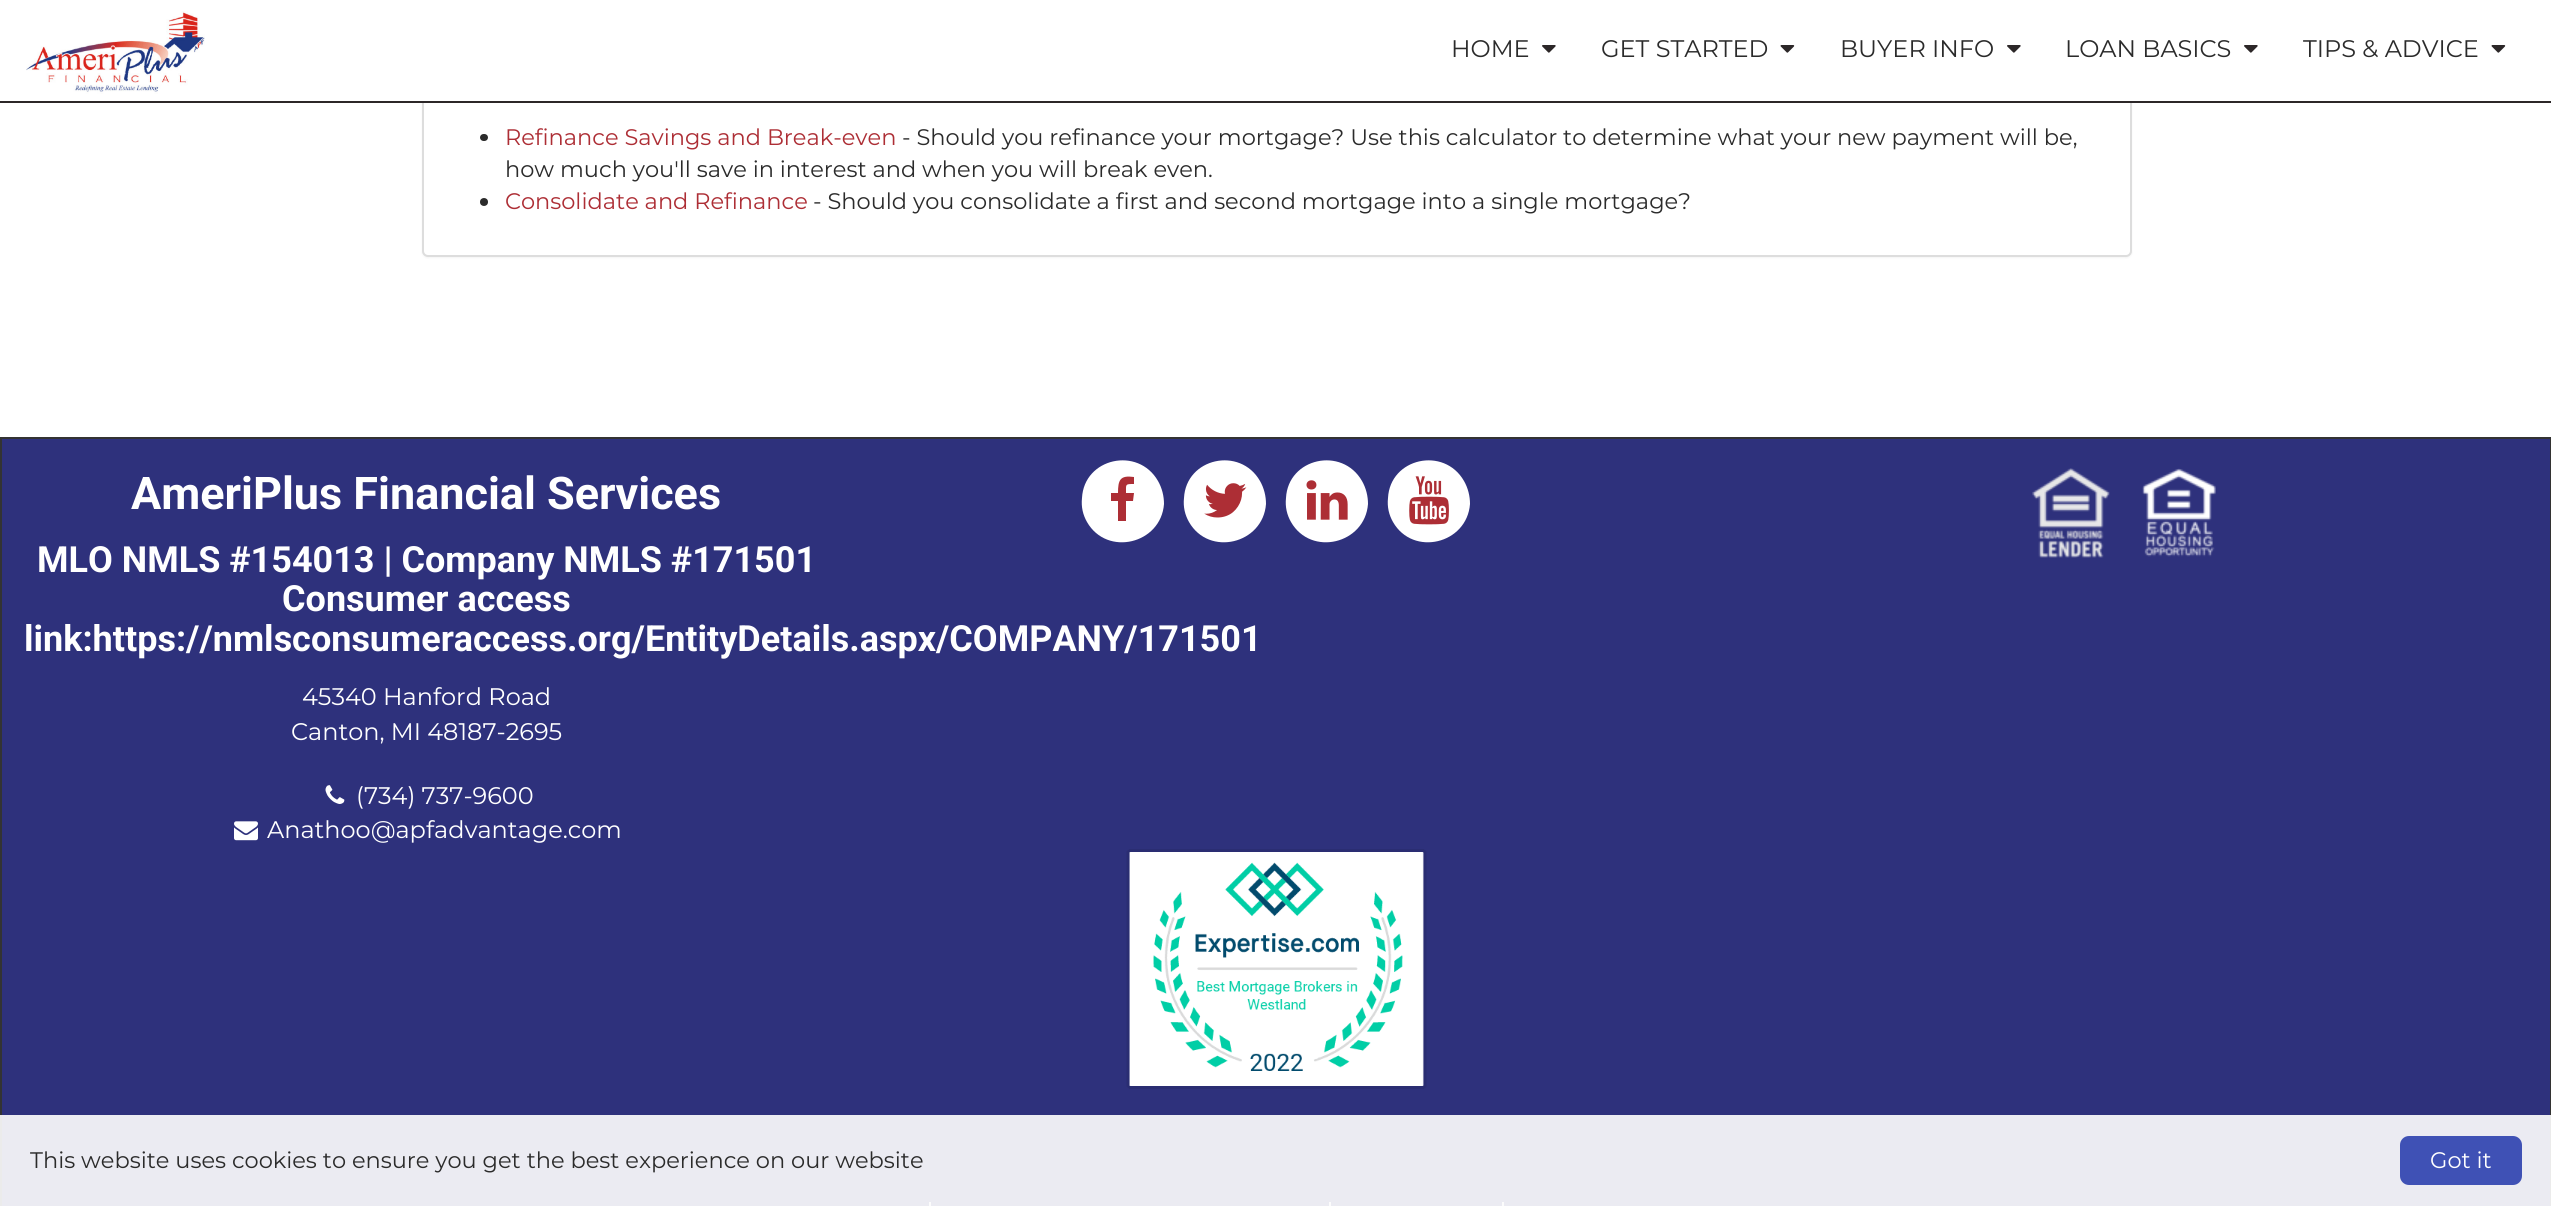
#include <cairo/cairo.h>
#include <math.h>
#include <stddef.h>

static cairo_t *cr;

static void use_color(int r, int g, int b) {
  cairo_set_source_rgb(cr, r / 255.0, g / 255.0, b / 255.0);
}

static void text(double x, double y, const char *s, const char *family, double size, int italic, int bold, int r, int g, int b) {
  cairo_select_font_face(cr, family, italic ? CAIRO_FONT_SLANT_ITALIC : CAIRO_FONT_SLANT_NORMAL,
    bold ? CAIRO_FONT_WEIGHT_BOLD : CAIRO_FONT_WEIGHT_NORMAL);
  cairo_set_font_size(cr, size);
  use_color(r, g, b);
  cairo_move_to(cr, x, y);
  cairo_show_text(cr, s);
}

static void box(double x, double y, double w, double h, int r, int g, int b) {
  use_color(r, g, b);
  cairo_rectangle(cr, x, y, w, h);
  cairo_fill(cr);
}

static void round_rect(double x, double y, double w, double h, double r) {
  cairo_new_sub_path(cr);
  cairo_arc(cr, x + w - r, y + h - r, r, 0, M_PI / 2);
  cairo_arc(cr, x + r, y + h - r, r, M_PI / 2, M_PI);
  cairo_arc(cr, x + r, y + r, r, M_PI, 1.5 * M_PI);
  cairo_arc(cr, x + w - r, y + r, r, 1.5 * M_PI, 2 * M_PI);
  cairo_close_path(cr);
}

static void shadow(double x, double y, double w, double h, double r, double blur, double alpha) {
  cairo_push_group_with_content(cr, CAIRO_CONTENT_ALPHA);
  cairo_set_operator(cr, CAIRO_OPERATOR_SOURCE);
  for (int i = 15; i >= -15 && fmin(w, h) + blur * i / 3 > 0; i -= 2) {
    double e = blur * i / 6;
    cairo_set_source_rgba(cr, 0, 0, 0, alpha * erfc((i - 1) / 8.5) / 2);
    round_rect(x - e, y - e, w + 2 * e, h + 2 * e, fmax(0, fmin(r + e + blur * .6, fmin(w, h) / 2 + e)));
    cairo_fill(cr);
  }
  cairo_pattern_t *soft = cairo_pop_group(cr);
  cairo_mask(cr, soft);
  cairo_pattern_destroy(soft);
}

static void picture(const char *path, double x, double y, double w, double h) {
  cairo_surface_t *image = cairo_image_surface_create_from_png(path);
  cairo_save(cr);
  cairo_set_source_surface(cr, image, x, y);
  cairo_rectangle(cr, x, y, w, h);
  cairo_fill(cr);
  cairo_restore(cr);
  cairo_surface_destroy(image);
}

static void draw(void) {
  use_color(255, 255, 255);
  cairo_paint(cr);
  use_color(0, 0, 0);
  shadow(422, -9, 1710, 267, 6, 1, 0.05);
  use_color(255, 255, 255);
  round_rect(423, -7, 1708, 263, 5);
  cairo_fill_preserve(cr);
  use_color(221, 221, 221);
  cairo_stroke(cr);
  box(421, 0, 1712, 101, 255, 255, 255);
  box(0, 101, 2551, 2, 44, 39, 40);
  picture("img_01.png", 26, 11, 179, 83);
  picture("img_02.png", 1542, 45, 14, 8);
  picture("img_03.png", 1780, 45, 15, 8);
  picture("img_02.png", 2007, 45, 14, 8);
  picture("img_02.png", 2244, 45, 14, 8);
  picture("img_03.png", 2491, 45, 15, 8);
  use_color(43, 43, 43);
  round_rect(480, 134, 8, 7, 3.5);
  cairo_fill(cr);
  cairo_arc(cr, 484, 202, 4, 0, 2 * M_PI);
  cairo_fill(cr);
  use_color(46, 49, 124);
  cairo_rectangle(cr, 1, 438, 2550, 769);
  cairo_fill_preserve(cr);
  use_color(51, 51, 51);
  cairo_stroke(cr);
  picture("img_04.png", 325, 785, 20, 19);
  picture("img_05.png", 234, 821, 24, 20);
  use_color(255, 255, 255);
  cairo_new_path(cr);
  cairo_move_to(cr, 1158, 481);
  cairo_curve_to(cr, 1162, 488, 1164, 496, 1164, 504);
  cairo_curve_to(cr, 1161, 544, 1107, 557, 1087, 522);
  cairo_curve_to(cr, 1083, 515, 1081, 507, 1082, 498);
  cairo_curve_to(cr, 1084, 458, 1138, 446, 1158, 481);
  cairo_close_path(cr);
  cairo_fill(cr);
  use_color(173, 46, 53);
  cairo_new_path(cr);
  cairo_move_to(cr, 1134, 477);
  cairo_line_to(cr, 1134, 484);
  cairo_curve_to(cr, 1125, 484, 1126, 484, 1126, 493);
  cairo_line_to(cr, 1134, 493);
  cairo_line_to(cr, 1133, 501);
  cairo_line_to(cr, 1126, 501);
  cairo_line_to(cr, 1126, 521);
  cairo_line_to(cr, 1118, 521);
  cairo_line_to(cr, 1118, 501);
  cairo_line_to(cr, 1111, 501);
  cairo_line_to(cr, 1111, 493);
  cairo_line_to(cr, 1118, 493);
  cairo_curve_to(cr, 1118, 480, 1120, 475, 1134, 477);
  cairo_close_path(cr);
  cairo_fill(cr);
  use_color(255, 255, 255);
  cairo_new_path(cr);
  cairo_move_to(cr, 1260, 481);
  cairo_curve_to(cr, 1264, 488, 1266, 496, 1266, 504);
  cairo_curve_to(cr, 1263, 544, 1209, 557, 1189, 522);
  cairo_curve_to(cr, 1185, 515, 1183, 507, 1184, 498);
  cairo_curve_to(cr, 1186, 458, 1240, 446, 1260, 481);
  cairo_close_path(cr);
  cairo_fill(cr);
  picture("img_06.png", 1204, 483, 43, 35);
  cairo_new_path(cr);
  cairo_move_to(cr, 1362, 481);
  cairo_curve_to(cr, 1366, 488, 1368, 496, 1368, 504);
  cairo_curve_to(cr, 1365, 544, 1311, 557, 1291, 522);
  cairo_curve_to(cr, 1287, 515, 1285, 507, 1286, 498);
  cairo_curve_to(cr, 1288, 458, 1342, 446, 1362, 481);
  cairo_close_path(cr);
  cairo_fill(cr);
  picture("img_07.png", 1306, 480, 42, 40);
  cairo_new_path(cr);
  cairo_move_to(cr, 1464, 481);
  cairo_curve_to(cr, 1468, 488, 1470, 496, 1470, 504);
  cairo_curve_to(cr, 1467, 544, 1413, 557, 1393, 522);
  cairo_curve_to(cr, 1389, 515, 1387, 507, 1388, 498);
  cairo_curve_to(cr, 1390, 458, 1444, 446, 1464, 481);
  cairo_close_path(cr);
  cairo_fill(cr);
  picture("img_08.png", 1409, 476, 40, 49);
  picture("img_09.png", 2032, 468, 78, 90);
  picture("img_10.png", 2142, 468, 74, 89);
  picture("img_11.png", 1126, 849, 301, 240);
  box(929, 1202, 2, 4, 221, 221, 221);
  box(1329, 1202, 2, 4, 221, 221, 221);
  box(1502, 1202, 2, 4, 221, 221, 221);
  cairo_set_source_rgba(cr, 1, 1, 1, 0.9);
  cairo_rectangle(cr, 0, 1115, 2551, 91);
  cairo_fill(cr);
  use_color(63, 81, 181);
  round_rect(2400, 1136, 122, 49, 9);
  cairo_fill(cr);
  text(1451, 57, "HOME", "Montserrat Thin", 24, 0, 0, 43, 43, 43);
  text(1601, 57, "GET STARTED", "Montserrat Thin", 24, 0, 0, 43, 43, 43);
  text(1840, 57, "BUYER INFO", "Montserrat Thin", 24, 0, 0, 43, 43, 43);
  text(2065, 57, "LOAN BASICS", "Montserrat Thin", 24, 0, 0, 43, 43, 43);
  text(2303, 57, "TIPS & ADVICE", "Montserrat Thin", 24, 0, 0, 43, 43, 43);
  text(505, 145, "Refinance Savings and Break-even", "Montserrat Thin", 22.5, 0, 0, 173, 46, 53);
  text(902, 145, "- Should you refinance your mortgage? Use this calculator to determine what your new payment will be,", "Montserrat Thin", 22.5, 0, 0, 43, 43, 43);
  text(505, 177, "how much you'll save in interest and when you will break even.", "Montserrat Thin", 22.5, 0, 0, 43, 43, 43);
  text(505, 209, "Consolidate and Refinance", "Montserrat Thin", 22.5, 0, 0, 173, 46, 53);
  text(813, 209, "- Should you consolidate a first and second mortgage into a single mortgage?", "Montserrat Thin", 22.5, 0, 0, 43, 43, 43);
  text(131, 509, "AmeriPlus Financial Services", "Roboto", 45, 0, 1, 255, 255, 255);
  text(37, 572, "MLO NMLS #154013 | Company NMLS #171501", "Roboto", 36, 0, 1, 255, 255, 255);
  text(282, 611, "Consumer access", "Roboto", 36, 0, 1, 255, 255, 255);
  text(24, 651, "link:https://nmlsconsumeraccess.org/EntityDetails.aspx/COMPANY/171501", "Roboto", 36, 0, 1, 255, 255, 255);
  text(302, 705, "45340 Hanford Road", "Montserrat Thin", 24, 0, 0, 255, 255, 255);
  text(291, 740, "Canton, MI 48187-2695", "Montserrat Thin", 24, 0, 0, 255, 255, 255);
  text(356, 804, "(734) 737-9600", "Montserrat Thin", 24, 0, 0, 255, 255, 255);
  text(267, 838, "Anathoo@apfadvantage.com", "Montserrat Thin", 24, 0, 0, 255, 255, 255);
  text(30, 1168, "This website uses cookies to ensure you get the best experience on our website", "Montserrat Thin", 22.5, 0, 0, 43, 43, 43);
  text(2430, 1168, "Got it", "Montserrat Thin", 22.5, 0, 0, 255, 255, 255);
}

int main(void) {
  cairo_surface_t *surface = cairo_image_surface_create(CAIRO_FORMAT_RGB24, 2551, 1206);
  cr = cairo_create(surface);
  cairo_font_options_t *options = cairo_font_options_create();
  cairo_font_options_set_hint_metrics(options, CAIRO_HINT_METRICS_OFF);
  cairo_font_options_set_hint_style(options, CAIRO_HINT_STYLE_NONE);
  cairo_set_font_options(cr, options);
  cairo_set_miter_limit(cr, 4);
  draw();
  cairo_surface_write_to_png(surface, "out.png");
  cairo_font_options_destroy(options);
  cairo_destroy(cr);
  cairo_surface_destroy(surface);
  return 0;
}
